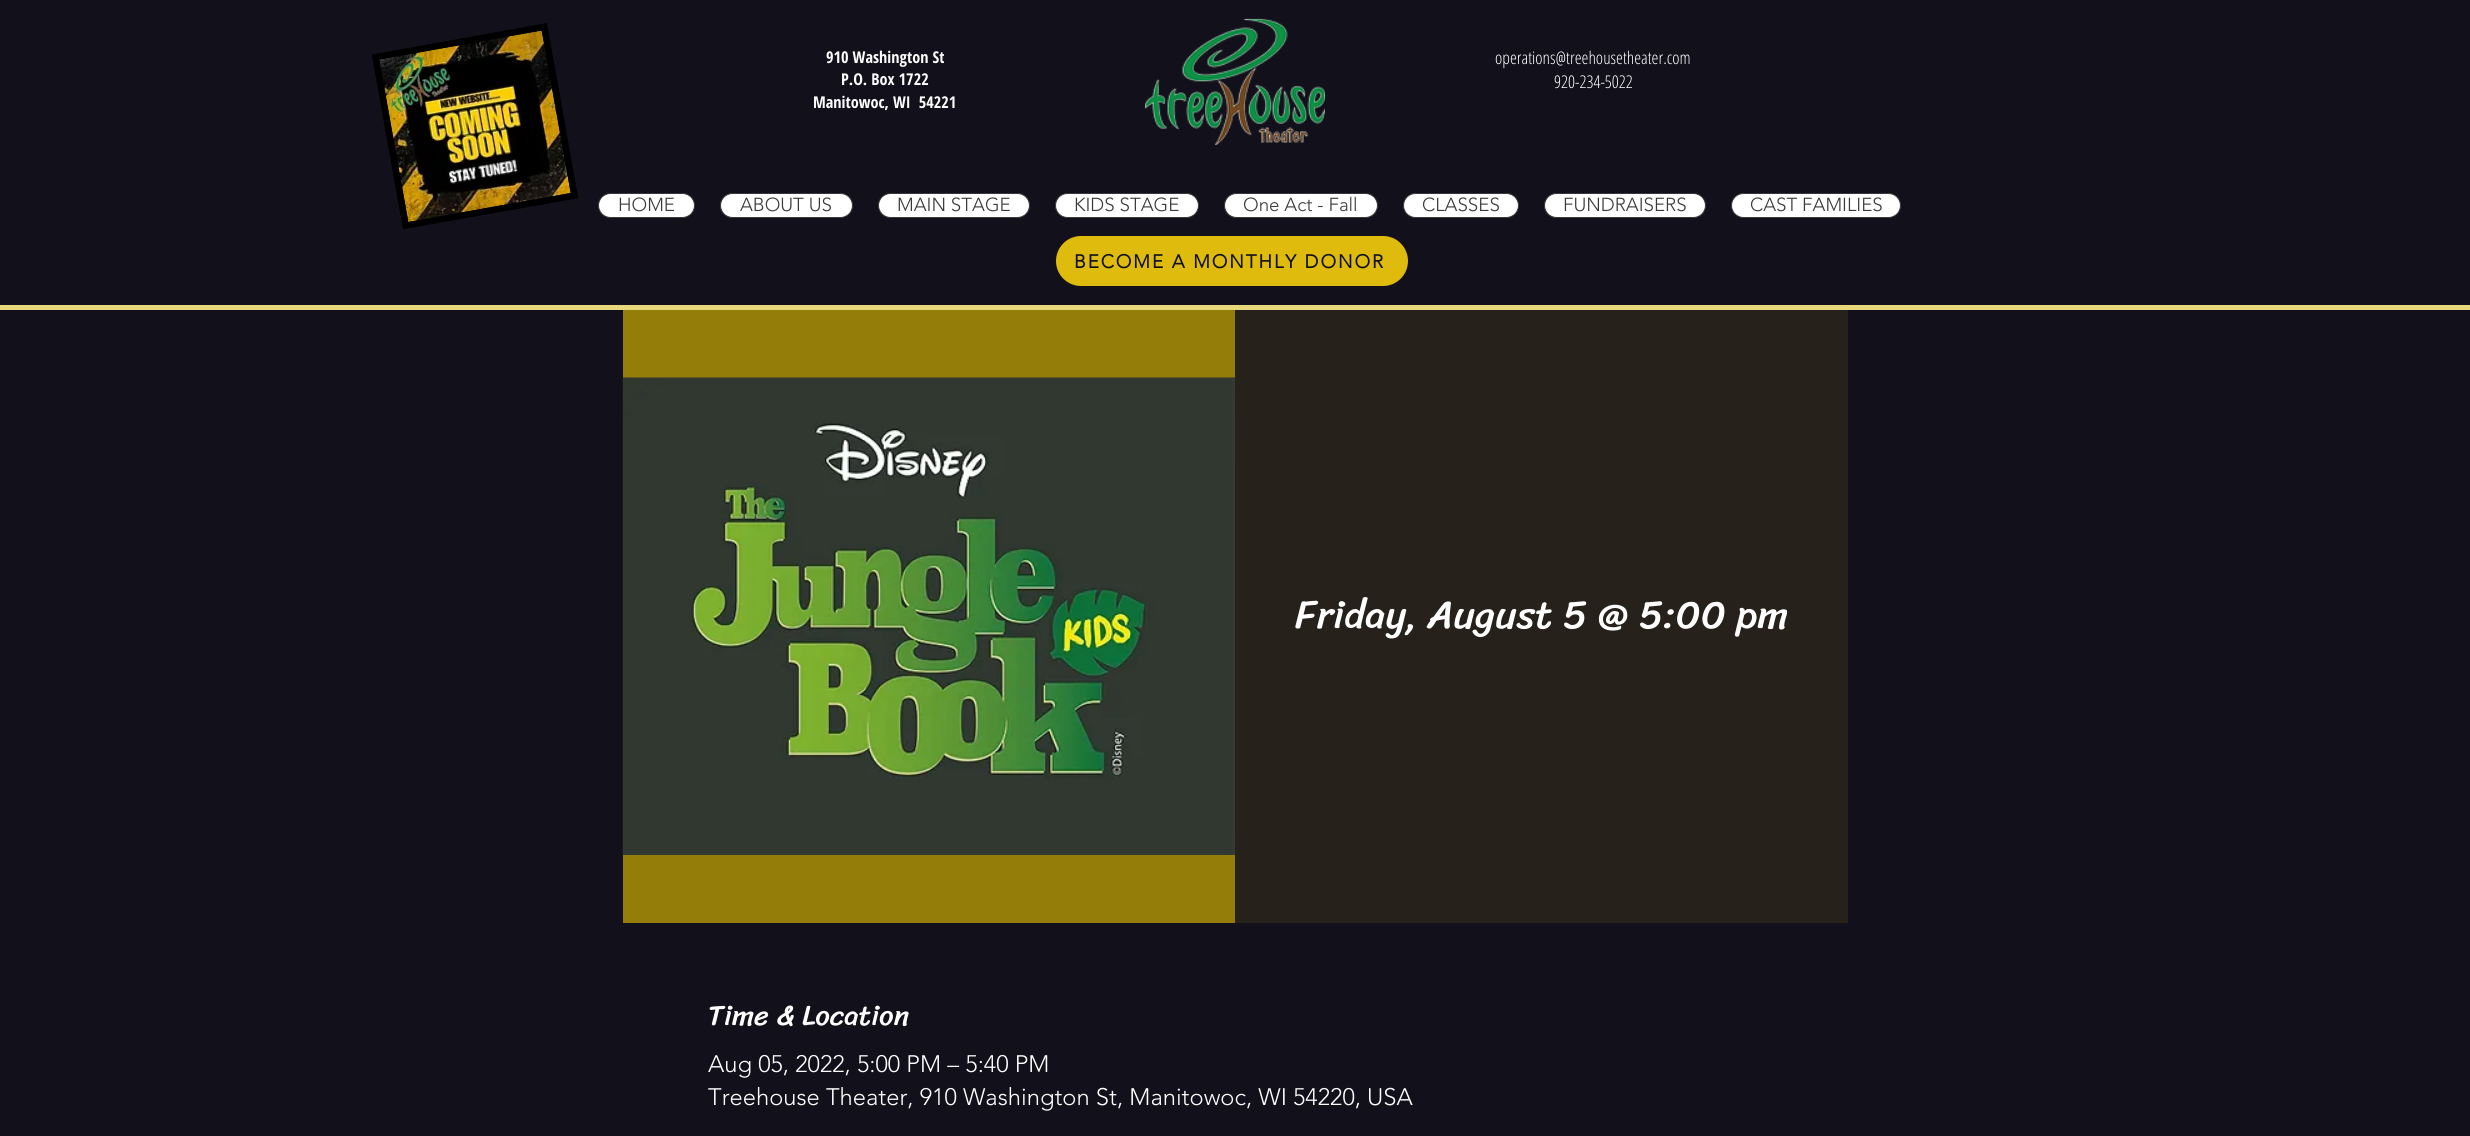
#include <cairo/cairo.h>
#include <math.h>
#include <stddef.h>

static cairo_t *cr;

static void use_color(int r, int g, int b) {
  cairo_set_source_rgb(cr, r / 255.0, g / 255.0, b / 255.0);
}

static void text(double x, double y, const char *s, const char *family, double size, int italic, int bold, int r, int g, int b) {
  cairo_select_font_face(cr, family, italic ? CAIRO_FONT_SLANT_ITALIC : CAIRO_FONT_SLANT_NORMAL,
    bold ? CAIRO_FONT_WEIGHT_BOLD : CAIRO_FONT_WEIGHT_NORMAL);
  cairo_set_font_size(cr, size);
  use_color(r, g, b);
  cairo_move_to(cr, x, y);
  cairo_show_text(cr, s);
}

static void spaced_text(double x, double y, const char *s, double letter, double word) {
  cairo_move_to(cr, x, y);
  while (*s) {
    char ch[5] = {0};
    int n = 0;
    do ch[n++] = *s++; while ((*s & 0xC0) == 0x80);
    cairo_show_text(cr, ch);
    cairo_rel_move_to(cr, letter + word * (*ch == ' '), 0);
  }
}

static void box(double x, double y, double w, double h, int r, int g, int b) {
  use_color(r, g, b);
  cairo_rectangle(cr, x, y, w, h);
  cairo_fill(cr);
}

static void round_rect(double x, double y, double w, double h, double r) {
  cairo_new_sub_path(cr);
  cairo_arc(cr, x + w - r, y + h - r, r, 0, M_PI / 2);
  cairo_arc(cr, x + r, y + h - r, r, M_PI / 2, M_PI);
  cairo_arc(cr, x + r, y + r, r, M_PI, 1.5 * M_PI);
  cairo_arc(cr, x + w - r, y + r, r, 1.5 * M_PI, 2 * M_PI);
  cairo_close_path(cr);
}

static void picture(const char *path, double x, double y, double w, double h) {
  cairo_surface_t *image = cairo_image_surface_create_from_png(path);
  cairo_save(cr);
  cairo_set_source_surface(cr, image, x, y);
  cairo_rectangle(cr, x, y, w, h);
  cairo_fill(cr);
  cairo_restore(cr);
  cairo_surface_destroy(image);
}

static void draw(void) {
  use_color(18, 16, 27);
  cairo_paint(cr);
  use_color(0, 0, 0);
  cairo_new_path(cr);
  cairo_move_to(cr, 372, 55);
  cairo_line_to(cr, 547, 23);
  cairo_line_to(cr, 578, 198);
  cairo_line_to(cr, 403, 229);
  cairo_close_path(cr);
  cairo_fill(cr);
  cairo_new_path(cr);
  cairo_move_to(cr, 375.5, 57);
  cairo_line_to(cr, 544, 27);
  cairo_line_to(cr, 574.5, 195.5);
  cairo_line_to(cr, 406, 225.5);
  cairo_close_path(cr);
  cairo_set_line_width(cr, 6.3);
  cairo_stroke(cr);
  picture("img_01.png", 379, 30, 192, 192);
  picture("img_02.png", 1145, 18, 180, 127);
  use_color(255, 255, 255);
  round_rect(598.5, 193.5, 96, 24, 12);
  cairo_fill_preserve(cr);
  use_color(56, 56, 56);
  cairo_set_line_width(cr, 1);
  cairo_stroke(cr);
  use_color(255, 255, 255);
  round_rect(720.5, 193.5, 132, 24, 12);
  cairo_fill_preserve(cr);
  use_color(56, 56, 56);
  cairo_stroke(cr);
  use_color(255, 255, 255);
  round_rect(878.5, 193.5, 151, 24, 12);
  cairo_fill_preserve(cr);
  use_color(56, 56, 56);
  cairo_stroke(cr);
  use_color(255, 255, 255);
  round_rect(1055.5, 193.5, 143, 24, 12);
  cairo_fill_preserve(cr);
  use_color(56, 56, 56);
  cairo_stroke(cr);
  use_color(255, 255, 255);
  round_rect(1224.5, 193.5, 153, 24, 12);
  cairo_fill_preserve(cr);
  use_color(56, 56, 56);
  cairo_stroke(cr);
  use_color(255, 255, 255);
  round_rect(1403.5, 193.5, 115, 24, 12);
  cairo_fill_preserve(cr);
  use_color(56, 56, 56);
  cairo_stroke(cr);
  use_color(255, 255, 255);
  round_rect(1544.5, 193.5, 161, 24, 12);
  cairo_fill_preserve(cr);
  use_color(56, 56, 56);
  cairo_stroke(cr);
  use_color(255, 255, 255);
  round_rect(1731.5, 193.5, 169, 24, 12);
  cairo_fill_preserve(cr);
  use_color(56, 56, 56);
  cairo_stroke(cr);
  use_color(222, 187, 13);
  round_rect(1056, 236, 352, 50, 25);
  cairo_fill(cr);
  box(0, 305, 2470, 5, 233, 215, 123);
  box(623, 310, 612, 613, 148, 125, 9);
  picture("img_03.png", 622, 377, 613, 478);
  box(1235, 310, 613, 613, 38, 33, 26);
  text(826, 63, "910 Washington St", "Open Sans Condensed", 16.25, 0, 1, 255, 255, 255);
  text(841, 85, "P.O. Box 1722", "Open Sans Condensed", 16.25, 0, 1, 255, 255, 255);
  text(813, 108, "Manitowoc, WI  54221", "Open Sans Condensed", 16.25, 0, 1, 255, 255, 255);
  text(1495, 64, "operations@treehousetheater.com", "Open Sans Condensed Light", 17.5, 0, 0, 255, 255, 255);
  text(1554, 88, "920-234-5022", "Open Sans Condensed Light", 17.5, 0, 0, 255, 255, 255);
  text(618, 211, "HOME", "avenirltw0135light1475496 Light", 18.75, 0, 0, 56, 56, 56);
  text(740, 211, "ABOUT US", "avenirltw0135light1475496 Light", 18.75, 0, 0, 56, 56, 56);
  text(897, 211, "MAIN STAGE", "avenirltw0135light1475496 Light", 18.75, 0, 0, 56, 56, 56);
  text(1074, 211, "KIDS STAGE", "avenirltw0135light1475496 Light", 18.75, 0, 0, 56, 56, 56);
  text(1243, 211, "One Act - Fall", "avenirltw0135light1475496 Light", 18.75, 0, 0, 56, 56, 56);
  text(1422, 211, "CLASSES", "avenirltw0135light1475496 Light", 18.75, 0, 0, 56, 56, 56);
  text(1563, 211, "FUNDRAISERS", "avenirltw0135light1475496 Light", 18.75, 0, 0, 56, 56, 56);
  text(1750, 211, "CAST FAMILIES", "avenirltw0135light1475496 Light", 18.75, 0, 0, 56, 56, 56);
  cairo_select_font_face(cr, "avenirltw0135light1475496", CAIRO_FONT_SLANT_NORMAL, CAIRO_FONT_WEIGHT_BOLD);
  use_color(18, 16, 27);
  spaced_text(1074, 268, "BECOME A MONTHLY DONOR", 1.9, 0);
  text(1295, 628, "Friday, August 5 @ 5:00 pm", "Sriracha", 40, 0, 0, 255, 255, 255);
  text(708, 1025, "Time & Location", "Sriracha", 28.75, 0, 0, 255, 255, 255);
  text(708, 1072, "Aug 05, 2022, 5:00 PM – 5:40 PM", "avenirltw0135light1475496 Light", 23.75, 0, 0, 255, 255, 255);
  text(708, 1105, "Treehouse Theater, 910 Washington St, Manitowoc, WI 54220, USA", "avenirltw0135light1475496 Light", 23.75, 0, 0, 255, 255, 255);
}

int main(void) {
  cairo_surface_t *surface = cairo_image_surface_create(CAIRO_FORMAT_RGB24, 2470, 1136);
  cr = cairo_create(surface);
  cairo_font_options_t *options = cairo_font_options_create();
  cairo_font_options_set_hint_metrics(options, CAIRO_HINT_METRICS_OFF);
  cairo_font_options_set_hint_style(options, CAIRO_HINT_STYLE_NONE);
  cairo_set_font_options(cr, options);
  cairo_set_miter_limit(cr, 4);
  draw();
  cairo_surface_write_to_png(surface, "out.png");
  cairo_font_options_destroy(options);
  cairo_destroy(cr);
  cairo_surface_destroy(surface);
  return 0;
}
